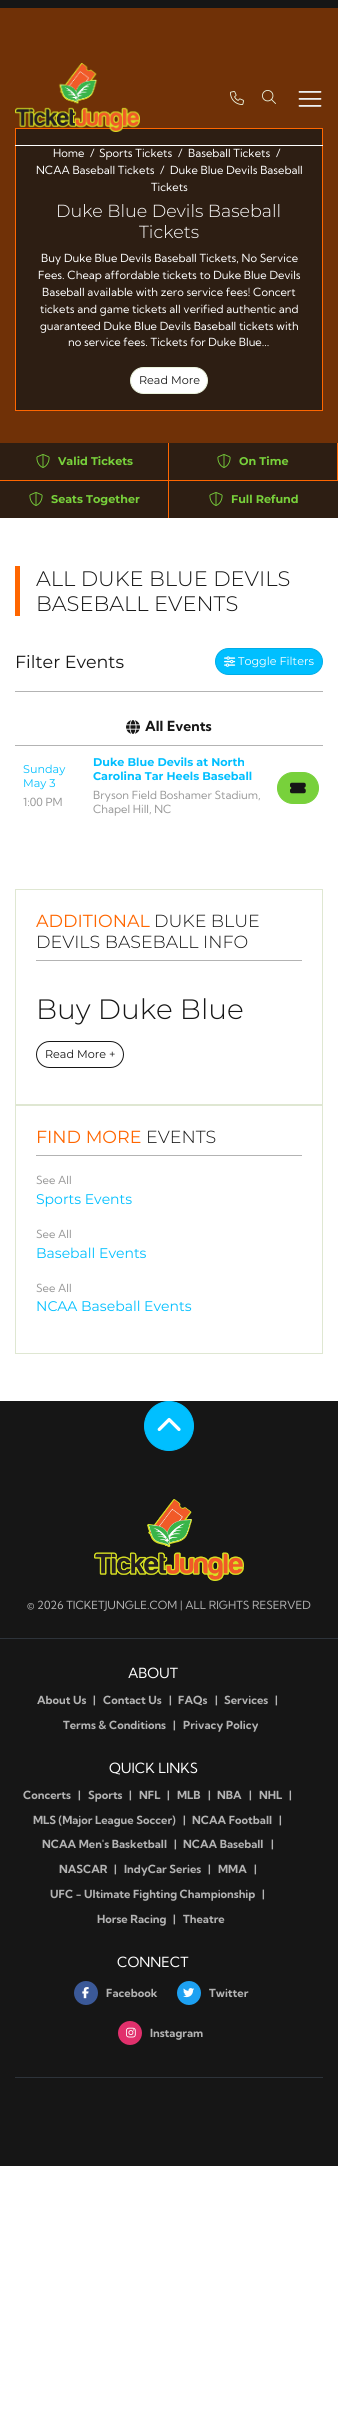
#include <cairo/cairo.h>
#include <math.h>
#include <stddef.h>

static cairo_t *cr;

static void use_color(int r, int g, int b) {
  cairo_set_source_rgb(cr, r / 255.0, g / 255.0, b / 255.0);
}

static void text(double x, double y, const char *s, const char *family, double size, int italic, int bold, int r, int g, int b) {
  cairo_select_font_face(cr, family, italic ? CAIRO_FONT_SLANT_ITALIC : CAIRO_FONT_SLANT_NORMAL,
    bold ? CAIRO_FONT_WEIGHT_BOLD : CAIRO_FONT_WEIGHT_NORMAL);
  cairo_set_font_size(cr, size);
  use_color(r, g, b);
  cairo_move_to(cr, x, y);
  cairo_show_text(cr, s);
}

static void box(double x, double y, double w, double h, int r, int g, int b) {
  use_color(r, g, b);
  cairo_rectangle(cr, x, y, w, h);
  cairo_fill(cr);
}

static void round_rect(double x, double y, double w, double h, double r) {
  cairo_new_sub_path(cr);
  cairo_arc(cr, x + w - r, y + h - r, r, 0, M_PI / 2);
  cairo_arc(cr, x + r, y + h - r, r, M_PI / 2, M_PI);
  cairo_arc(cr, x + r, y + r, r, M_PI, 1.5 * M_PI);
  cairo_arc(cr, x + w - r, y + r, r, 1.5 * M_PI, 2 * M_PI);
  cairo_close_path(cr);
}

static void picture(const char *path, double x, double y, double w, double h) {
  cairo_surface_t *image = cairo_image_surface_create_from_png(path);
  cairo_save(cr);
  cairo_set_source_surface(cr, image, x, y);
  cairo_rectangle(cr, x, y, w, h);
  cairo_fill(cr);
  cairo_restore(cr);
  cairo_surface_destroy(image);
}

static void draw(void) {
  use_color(255, 255, 255);
  cairo_paint(cr);
  box(0, 0, 338, 8, 22, 22, 22);
  box(0, 8, 338, 435, 112, 49, 7);
  use_color(45, 30, 19);
  cairo_rectangle(cr, 15.5, 128.5, 307, 282);
  cairo_fill_preserve(cr);
  use_color(255, 102, 0);
  cairo_set_line_width(cr, 1);
  cairo_stroke(cr);
  box(15, 145, 308, 1, 255, 255, 255);
  picture("img_01.png", 15, 63, 125, 69);
  picture("img_02.png", 230, 91, 14, 14);
  picture("img_03.png", 262, 90, 14, 14);
  picture("img_04.png", 298, 91, 24, 16);
  round_rect(130.5, 367.5, 77, 26, 13);
  cairo_fill_preserve(cr);
  use_color(235, 243, 221);
  cairo_stroke(cr);
  box(0, 443, 168, 37, 45, 30, 19);
  box(168, 443, 1, 75, 255, 102, 0);
  box(0, 480, 169, 1, 255, 102, 0);
  picture("img_05.png", 36, 454, 14, 14);
  box(169, 443, 168, 37, 45, 30, 19);
  box(337, 443, 1, 38, 255, 102, 0);
  box(169, 480, 169, 1, 255, 102, 0);
  picture("img_05.png", 217, 454, 14, 14);
  box(0, 481, 168, 37, 45, 30, 19);
  picture("img_05.png", 29, 492, 14, 14);
  box(169, 481, 169, 37, 45, 30, 19);
  picture("img_05.png", 209, 492, 14, 14);
  box(15, 566, 5, 50, 255, 102, 0);
  box(15, 691, 308, 1, 179, 179, 179);
  use_color(0, 191, 255);
  round_rect(215.5, 648.5, 107, 26, 13);
  cairo_fill_preserve(cr);
  use_color(0, 172, 230);
  cairo_stroke(cr);
  picture("img_06.png", 224, 656, 12, 11);
  box(15, 745, 308, 1, 179, 179, 179);
  picture("img_07.png", 126, 720, 14, 14);
  use_color(120, 209, 59);
  round_rect(277.5, 772.5, 41, 31, 15.5);
  cairo_fill_preserve(cr);
  cairo_stroke(cr);
  picture("img_08.png", 290, 782, 16, 12);
  cairo_rectangle(cr, 15.5, 889.5, 307, 215);
  use_color(223, 231, 210);
  cairo_stroke(cr);
  box(36, 960, 266, 1, 179, 179, 179);
  round_rect(36.5, 1041.5, 87, 26, 13);
  use_color(22, 22, 22);
  cairo_stroke(cr);
  cairo_rectangle(cr, 15.5, 1105.5, 307, 248);
  use_color(223, 231, 210);
  cairo_stroke(cr);
  box(36, 1155, 266, 1, 179, 179, 179);
  box(0, 1401, 338, 765, 22, 22, 22);
  use_color(0, 191, 255);
  cairo_arc(cr, 169, 1426, 24.5, 0, 2 * M_PI);
  cairo_fill_preserve(cr);
  cairo_stroke(cr);
  picture("img_09.png", 157, 1417, 24, 14);
  box(0, 1638, 338, 1, 45, 51, 58);
  picture("img_10.png", 94, 1499, 150, 82);
  use_color(59, 89, 152);
  cairo_arc(cr, 86, 1993, 12, 0, 2 * M_PI);
  cairo_fill(cr);
  picture("img_11.png", 82, 1987, 7, 12);
  use_color(29, 161, 242);
  cairo_arc(cr, 189, 1993, 12, 0, 2 * M_PI);
  cairo_fill(cr);
  picture("img_12.png", 183, 1988, 11, 10);
  use_color(225, 48, 108);
  cairo_arc(cr, 130, 2033, 12, 0, 2 * M_PI);
  cairo_fill(cr);
  picture("img_13.png", 126, 2027, 10, 11);
  box(15, 2077, 308, 1, 45, 51, 58);
  text(53, 157, "Home", "Kumbh Sans", 11.2, 0, 0, 255, 255, 255);
  text(90, 157, "/", "Kumbh Sans", 11.2, 0, 0, 255, 255, 255);
  text(99, 157, "Sports Tickets", "Kumbh Sans", 11.2, 0, 0, 255, 255, 255);
  text(178, 157, "/", "Kumbh Sans", 11.2, 0, 0, 255, 255, 255);
  text(188, 157, "Baseball Tickets", "Kumbh Sans", 11.2, 0, 0, 255, 255, 255);
  text(276, 157, "/", "Kumbh Sans", 11.2, 0, 0, 255, 255, 255);
  text(36, 174, "NCAA Baseball Tickets", "Kumbh Sans", 11.2, 0, 0, 255, 255, 255);
  text(160, 174, "/", "Kumbh Sans", 11.2, 0, 0, 255, 255, 255);
  text(170, 174, "Duke Blue Devils Baseball", "Kumbh Sans", 11.2, 0, 0, 255, 255, 255);
  text(151, 191, "Tickets", "Kumbh Sans", 11.2, 0, 0, 255, 255, 255);
  text(56, 217, "Duke Blue Devils Baseball", "Montserrat Light", 17.5, 0, 0, 255, 255, 255);
  text(139, 238, "Tickets", "Montserrat Light", 17.5, 0, 0, 255, 255, 255);
  text(41, 262, "Buy Duke Blue Devils Baseball Tickets, No Service", "Kumbh Sans", 11.2, 0, 0, 255, 255, 255);
  text(38, 279, "Fees. Cheap affordable tickets to Duke Blue Devils", "Kumbh Sans", 11.2, 0, 0, 255, 255, 255);
  text(42, 296, "Baseball available with zero service fees! Concert", "Kumbh Sans", 11.2, 0, 0, 255, 255, 255);
  text(40, 313, "tickets and game tickets all verified authentic and", "Kumbh Sans", 11.2, 0, 0, 255, 255, 255);
  text(40, 330, "guaranteed Duke Blue Devils Baseball tickets with", "Kumbh Sans", 11.2, 0, 0, 255, 255, 255);
  text(68, 346, "no service fees. Tickets for Duke Blue...", "Kumbh Sans", 11.2, 0, 0, 255, 255, 255);
  text(139, 384, "Read More", "Montserrat", 11.2, 0, 0, 22, 22, 22);
  text(58, 465, "Valid Tickets", "Montserrat", 11.2, 0, 1, 120, 209, 59);
  text(239, 465, "On Time", "Montserrat", 11.2, 0, 1, 120, 209, 59);
  text(51, 503, "Seats Together", "Montserrat", 11.2, 0, 1, 120, 209, 59);
  text(231, 503, "Full Refund", "Montserrat", 11.2, 0, 1, 120, 209, 59);
  text(36, 586, "ALL DUKE BLUE DEVILS", "Montserrat Light", 21, 0, 0, 22, 22, 22);
  text(36, 611, "BASEBALL EVENTS", "Montserrat Light", 21, 0, 0, 22, 22, 22);
  text(15, 668, "Filter Events", "Montserrat", 17.5, 0, 0, 22, 22, 22);
  text(238, 665, "Toggle Filters", "Montserrat", 11.2, 0, 0, 255, 255, 255);
  text(145, 731, "All", "Kumbh Sans", 14, 0, 1, 22, 22, 22);
  text(167, 731, "Events", "Kumbh Sans", 14, 0, 1, 22, 22, 22);
  text(23, 773, "Sunday", "Montserrat", 11.2, 0, 0, 0, 191, 255);
  text(23, 787, "May 3", "Montserrat", 11.2, 0, 0, 0, 191, 255);
  text(23, 806, "1:00 PM", "Kumbh Sans", 11.2, 0, 0, 153, 153, 153);
  text(93, 766, "Duke Blue Devils at North", "Montserrat", 11.2, 0, 1, 0, 191, 255);
  text(93, 780, "Carolina Tar Heels Baseball", "Montserrat", 11.2, 0, 1, 0, 191, 255);
  text(93, 799, "Bryson Field Boshamer Stadium,", "Kumbh Sans", 11.2, 0, 0, 153, 153, 153);
  text(93, 813, "Chapel Hill, NC", "Kumbh Sans", 11.2, 0, 0, 153, 153, 153);
  text(36, 927, "ADDITIONAL", "Montserrat", 17.5, 0, 0, 255, 102, 0);
  text(154, 927, "DUKE BLUE", "Montserrat Light", 17.5, 0, 0, 22, 22, 22);
  text(36, 948, "DEVILS BASEBALL INFO", "Montserrat Light", 17.5, 0, 0, 22, 22, 22);
  text(36, 1019, "Buy Duke Blue", "Montserrat Light", 28, 0, 0, 22, 22, 22);
  text(45, 1058, "Read More +", "Montserrat", 11.2, 0, 0, 22, 22, 22);
  text(36, 1143, "FIND MORE", "Montserrat", 17.5, 0, 0, 255, 102, 0);
  text(146, 1143, "EVENTS", "Montserrat Light", 17.5, 0, 0, 22, 22, 22);
  text(36, 1184, "See All", "Kumbh Sans", 11.2, 0, 0, 153, 153, 153);
  text(36, 1204, "Sports Events", "Montserrat", 14, 0, 0, 0, 191, 255);
  text(36, 1238, "See All", "Kumbh Sans", 11.2, 0, 0, 153, 153, 153);
  text(36, 1258, "Baseball Events", "Montserrat", 14, 0, 0, 0, 191, 255);
  text(36, 1292, "See All", "Kumbh Sans", 11.2, 0, 0, 153, 153, 153);
  text(36, 1311, "NCAA Baseball Events", "Montserrat", 14, 0, 0, 0, 191, 255);
  text(27, 1609, "© 2026 TICKETJUNGLE.COM | ALL RIGHTS RESERVED", "Kumbh Sans", 11.2, 0, 0, 179, 179, 179);
  text(128, 1678, "ABOUT", "Kumbh Sans", 14, 0, 0, 255, 255, 255);
  text(37, 1704, "About Us", "Kumbh Sans", 11.2, 0, 1, 179, 179, 179);
  text(93, 1704, "|", "Kumbh Sans", 11.2, 0, 1, 179, 179, 179);
  text(103, 1704, "Contact Us", "Kumbh Sans", 11.2, 0, 1, 179, 179, 179);
  text(169, 1704, "|", "Kumbh Sans", 11.2, 0, 1, 179, 179, 179);
  text(178, 1704, "FAQs", "Kumbh Sans", 11.2, 0, 1, 179, 179, 179);
  text(215, 1704, "|", "Kumbh Sans", 11.2, 0, 1, 179, 179, 179);
  text(224, 1704, "Services", "Kumbh Sans", 11.2, 0, 1, 179, 179, 179);
  text(275, 1704, "|", "Kumbh Sans", 11.2, 0, 1, 179, 179, 179);
  text(63, 1729, "Terms & Conditions", "Kumbh Sans", 11.2, 0, 1, 179, 179, 179);
  text(173, 1729, "|", "Kumbh Sans", 11.2, 0, 1, 179, 179, 179);
  text(183, 1729, "Privacy Policy", "Kumbh Sans", 11.2, 0, 1, 179, 179, 179);
  text(109, 1773, "QUICK LINKS", "Kumbh Sans", 14, 0, 0, 255, 255, 255);
  text(23, 1799, "Concerts", "Kumbh Sans", 11.2, 0, 1, 179, 179, 179);
  text(78, 1799, "|", "Kumbh Sans", 11.2, 0, 1, 179, 179, 179);
  text(88, 1799, "Sports", "Kumbh Sans", 11.2, 0, 1, 179, 179, 179);
  text(129, 1799, "|", "Kumbh Sans", 11.2, 0, 1, 179, 179, 179);
  text(139, 1799, "NFL", "Kumbh Sans", 11.2, 0, 1, 179, 179, 179);
  text(167, 1799, "|", "Kumbh Sans", 11.2, 0, 1, 179, 179, 179);
  text(177, 1799, "MLB", "Kumbh Sans", 11.2, 0, 1, 179, 179, 179);
  text(208, 1799, "|", "Kumbh Sans", 11.2, 0, 1, 179, 179, 179);
  text(217, 1799, "NBA", "Kumbh Sans", 11.2, 0, 1, 179, 179, 179);
  text(249, 1799, "|", "Kumbh Sans", 11.2, 0, 1, 179, 179, 179);
  text(259, 1799, "NHL", "Kumbh Sans", 11.2, 0, 1, 179, 179, 179);
  text(289, 1799, "|", "Kumbh Sans", 11.2, 0, 1, 179, 179, 179);
  text(33, 1824, "MLS (Major League Soccer)", "Kumbh Sans", 11.2, 0, 1, 179, 179, 179);
  text(183, 1824, "|", "Kumbh Sans", 11.2, 0, 1, 179, 179, 179);
  text(192, 1824, "NCAA Football", "Kumbh Sans", 11.2, 0, 1, 179, 179, 179);
  text(279, 1824, "|", "Kumbh Sans", 11.2, 0, 1, 179, 179, 179);
  text(42, 1848, "NCAA Men's Basketball", "Kumbh Sans", 11.2, 0, 1, 179, 179, 179);
  text(174, 1848, "|", "Kumbh Sans", 11.2, 0, 1, 179, 179, 179);
  text(183, 1848, "NCAA Baseball", "Kumbh Sans", 11.2, 0, 1, 179, 179, 179);
  text(271, 1848, "|", "Kumbh Sans", 11.2, 0, 1, 179, 179, 179);
  text(59, 1873, "NASCAR", "Kumbh Sans", 11.2, 0, 1, 179, 179, 179);
  text(114, 1873, "|", "Kumbh Sans", 11.2, 0, 1, 179, 179, 179);
  text(124, 1873, "IndyCar Series", "Kumbh Sans", 11.2, 0, 1, 179, 179, 179);
  text(208, 1873, "|", "Kumbh Sans", 11.2, 0, 1, 179, 179, 179);
  text(218, 1873, "MMA", "Kumbh Sans", 11.2, 0, 1, 179, 179, 179);
  text(254, 1873, "|", "Kumbh Sans", 11.2, 0, 1, 179, 179, 179);
  text(50, 1898, "UFC - Ultimate Fighting Championship", "Kumbh Sans", 11.2, 0, 1, 179, 179, 179);
  text(262, 1898, "|", "Kumbh Sans", 11.2, 0, 1, 179, 179, 179);
  text(97, 1923, "Horse Racing", "Kumbh Sans", 11.2, 0, 1, 179, 179, 179);
  text(173, 1923, "|", "Kumbh Sans", 11.2, 0, 1, 179, 179, 179);
  text(183, 1923, "Theatre", "Kumbh Sans", 11.2, 0, 1, 179, 179, 179);
  text(117, 1967, "CONNECT", "Kumbh Sans", 14, 0, 0, 255, 255, 255);
  text(106, 1997, "Facebook", "Kumbh Sans", 11.2, 0, 1, 179, 179, 179);
  text(209, 1997, "Twitter", "Kumbh Sans", 11.2, 0, 1, 179, 179, 179);
  text(150, 2037, "Instagram", "Kumbh Sans", 11.2, 0, 1, 179, 179, 179);
}

int main(void) {
  cairo_surface_t *surface = cairo_image_surface_create(CAIRO_FORMAT_RGB24, 338, 2435);
  cr = cairo_create(surface);
  cairo_font_options_t *options = cairo_font_options_create();
  cairo_font_options_set_hint_metrics(options, CAIRO_HINT_METRICS_OFF);
  cairo_font_options_set_hint_style(options, CAIRO_HINT_STYLE_NONE);
  cairo_set_font_options(cr, options);
  cairo_set_miter_limit(cr, 4);
  draw();
  cairo_surface_write_to_png(surface, "out.png");
  cairo_font_options_destroy(options);
  cairo_destroy(cr);
  cairo_surface_destroy(surface);
  return 0;
}
